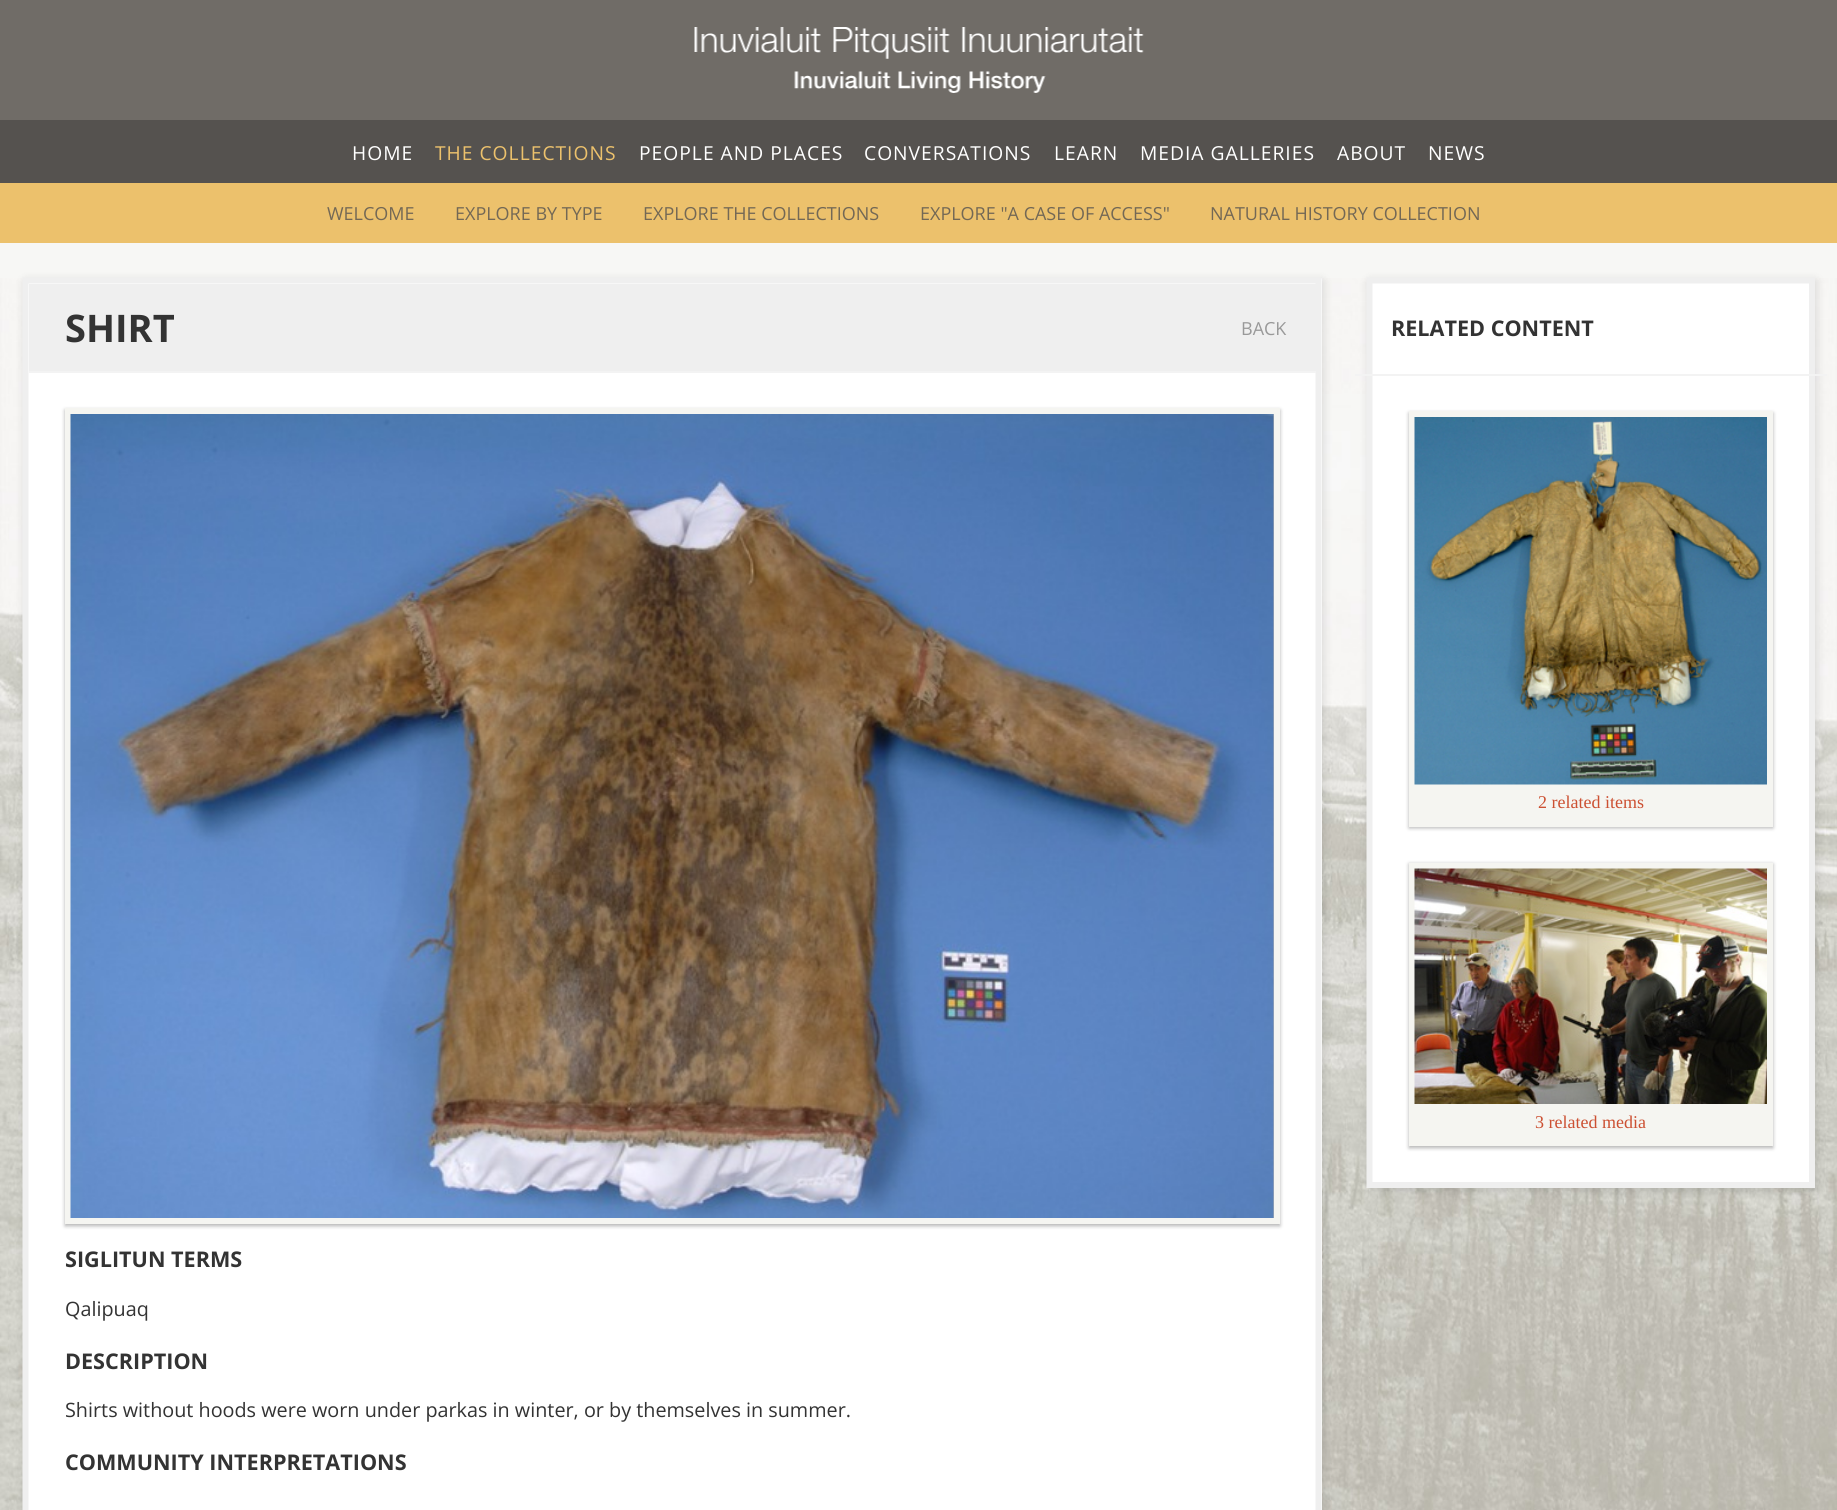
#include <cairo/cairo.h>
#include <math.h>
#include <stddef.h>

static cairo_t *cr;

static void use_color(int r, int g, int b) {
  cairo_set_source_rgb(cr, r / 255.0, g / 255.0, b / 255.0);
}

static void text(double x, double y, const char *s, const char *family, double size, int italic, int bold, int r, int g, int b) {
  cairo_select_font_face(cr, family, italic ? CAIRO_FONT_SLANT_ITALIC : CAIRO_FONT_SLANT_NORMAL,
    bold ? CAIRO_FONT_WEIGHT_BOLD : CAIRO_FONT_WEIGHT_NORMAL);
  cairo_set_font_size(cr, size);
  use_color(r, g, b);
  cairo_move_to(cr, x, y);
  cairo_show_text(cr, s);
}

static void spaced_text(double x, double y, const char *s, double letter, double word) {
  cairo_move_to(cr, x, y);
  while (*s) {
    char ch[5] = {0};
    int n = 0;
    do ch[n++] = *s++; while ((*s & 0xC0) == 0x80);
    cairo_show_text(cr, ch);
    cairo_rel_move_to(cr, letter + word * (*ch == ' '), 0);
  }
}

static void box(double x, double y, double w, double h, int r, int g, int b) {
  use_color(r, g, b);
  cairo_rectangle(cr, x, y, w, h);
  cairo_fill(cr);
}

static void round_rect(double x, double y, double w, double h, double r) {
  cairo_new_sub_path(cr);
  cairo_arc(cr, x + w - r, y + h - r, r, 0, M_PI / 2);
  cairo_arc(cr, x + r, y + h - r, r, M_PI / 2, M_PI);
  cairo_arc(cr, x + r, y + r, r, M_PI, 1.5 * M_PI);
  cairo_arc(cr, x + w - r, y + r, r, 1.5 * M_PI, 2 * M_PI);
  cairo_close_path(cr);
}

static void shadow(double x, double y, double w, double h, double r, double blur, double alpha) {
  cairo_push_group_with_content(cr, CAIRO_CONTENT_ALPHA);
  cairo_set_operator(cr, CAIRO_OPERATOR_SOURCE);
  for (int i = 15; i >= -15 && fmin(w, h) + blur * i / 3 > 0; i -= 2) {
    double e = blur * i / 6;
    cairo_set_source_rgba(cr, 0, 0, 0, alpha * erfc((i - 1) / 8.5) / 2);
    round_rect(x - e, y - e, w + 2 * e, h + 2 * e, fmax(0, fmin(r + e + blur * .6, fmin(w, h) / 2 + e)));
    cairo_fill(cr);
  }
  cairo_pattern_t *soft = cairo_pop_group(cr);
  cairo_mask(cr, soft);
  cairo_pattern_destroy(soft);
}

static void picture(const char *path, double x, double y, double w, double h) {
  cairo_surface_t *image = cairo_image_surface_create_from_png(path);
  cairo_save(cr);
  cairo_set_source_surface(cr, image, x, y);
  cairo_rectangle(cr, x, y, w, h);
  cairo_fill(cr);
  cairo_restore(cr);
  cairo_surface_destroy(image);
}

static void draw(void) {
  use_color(247, 247, 245);
  cairo_paint(cr);
  box(0, 0, 1837, 120, 112, 108, 103);
  picture("img_01.png", 694, 27, 450, 66);
  box(0, 120, 1837, 63, 85, 82, 79);
  box(0, 183, 1837, 60, 236, 193, 108);
  picture("img_05.png", 0, 278, 1837, 1232);
  use_color(0, 0, 0);
  shadow(23, 279, 1302, 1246, 3, 4, 0.1);
  use_color(255, 255, 255);
  round_rect(23, 278, 1299, 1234, 1.5);
  cairo_fill(cr);
  cairo_new_path(cr);
  cairo_move_to(cr, 25.5, 280.5);
  cairo_line_to(cr, 1318.5, 280.5);
  cairo_line_to(cr, 1318.5, 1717.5);
  cairo_line_to(cr, 25.5, 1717.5);
  cairo_close_path(cr);
  use_color(239, 239, 239);
  cairo_set_line_width(cr, 6);
  cairo_stroke(cr);
  box(29, 284, 1287, 87, 239, 239, 239);
  box(29, 371, 1287, 2, 243, 243, 243);
  use_color(0, 0, 0);
  shadow(65, 410, 1215, 816, 0, 2, 0.3);
  cairo_rectangle(cr, 68, 411, 1209, 810);
  use_color(245, 245, 241);
  cairo_stroke(cr);
  picture("img_02.png", 70, 414, 1204, 804);
  use_color(0, 0, 0);
  shadow(1367, 279, 451, 914, 3, 4, 0.1);
  box(1372, 283, 437, 899, 255, 255, 255);
  cairo_new_path(cr);
  cairo_move_to(cr, 1369.5, 280.5);
  cairo_line_to(cr, 1812, 280.5);
  cairo_line_to(cr, 1812, 1185);
  cairo_line_to(cr, 1369.5, 1185);
  cairo_close_path(cr);
  use_color(239, 239, 239);
  cairo_stroke(cr);
  box(1355, 374, 472, 2, 243, 243, 243);
  use_color(0, 0, 0);
  shadow(1409, 413, 364, 415, 0, 2, 0.3);
  box(1409, 411, 364, 416, 245, 245, 241);
  picture("img_03.png", 1414, 417, 353, 368);
  use_color(0, 0, 0);
  shadow(1409, 864, 364, 284, 0, 2, 0.3);
  box(1409, 863, 364, 283, 245, 245, 241);
  picture("img_04.png", 1414, 868, 353, 236);
  cairo_select_font_face(cr, "Open Sans", CAIRO_FONT_SLANT_NORMAL, CAIRO_FONT_WEIGHT_NORMAL);
  cairo_set_font_size(cr, 19.25);
  use_color(255, 255, 255);
  spaced_text(352, 160, "HOME", 1, 0);
  use_color(236, 193, 108);
  spaced_text(435, 160, "THE COLLECTIONS", 1, 0);
  use_color(255, 255, 255);
  spaced_text(639, 160, "PEOPLE AND PLACES", 1, 0);
  spaced_text(864, 160, "CONVERSATIONS", 1, 0);
  spaced_text(1054, 160, "LEARN", 1, 0);
  spaced_text(1140, 160, "MEDIA GALLERIES", 1, 0);
  spaced_text(1337, 160, "ABOUT", 1, 0);
  spaced_text(1428, 160, "NEWS", 1, 0);
  text(327, 220, "WELCOME", "Open Sans", 18, 0, 0, 115, 104, 85);
  text(455, 220, "EXPLORE BY TYPE", "Open Sans", 18, 0, 0, 115, 104, 85);
  text(643, 220, "EXPLORE THE COLLECTIONS", "Open Sans", 18, 0, 0, 115, 104, 85);
  text(920, 220, "EXPLORE \"A CASE OF ACCESS\"", "Open Sans", 18, 0, 0, 115, 104, 85);
  text(1210, 220, "NATURAL HISTORY COLLECTION", "Open Sans", 18, 0, 0, 115, 104, 85);
  text(65, 342, "SHIRT", "Open Sans", 38, 0, 1, 51, 51, 51);
  text(1241, 335, "BACK", "Open Sans", 18, 0, 0, 153, 153, 153);
  text(65, 1267, "SIGLITUN TERMS", "Open Sans", 21.6, 0, 1, 51, 51, 51);
  text(65, 1316, "Qalipuaq", "Open Sans", 19.8, 0, 0, 51, 51, 51);
  text(65, 1369, "DESCRIPTION", "Open Sans", 21.6, 0, 1, 51, 51, 51);
  text(65, 1417, "Shirts without hoods were worn under parkas in winter, or by themselves in summer.", "Open Sans", 19.8, 0, 0, 51, 51, 51);
  text(65, 1470, "COMMUNITY INTERPRETATIONS", "Open Sans", 21.6, 0, 1, 51, 51, 51);
  text(1391, 336, "RELATED CONTENT", "Open Sans", 21.6, 0, 1, 51, 51, 51);
  text(1538, 808, "2 related items", "Liberation Serif", 18, 0, 0, 204, 80, 50);
  text(1535, 1128, "3 related media", "Liberation Serif", 18, 0, 0, 204, 80, 50);
}

int main(void) {
  cairo_surface_t *surface = cairo_image_surface_create(CAIRO_FORMAT_RGB24, 1837, 1510);
  cr = cairo_create(surface);
  cairo_font_options_t *options = cairo_font_options_create();
  cairo_font_options_set_hint_metrics(options, CAIRO_HINT_METRICS_OFF);
  cairo_font_options_set_hint_style(options, CAIRO_HINT_STYLE_NONE);
  cairo_set_font_options(cr, options);
  cairo_set_miter_limit(cr, 4);
  draw();
  cairo_surface_write_to_png(surface, "out.png");
  cairo_font_options_destroy(options);
  cairo_destroy(cr);
  cairo_surface_destroy(surface);
  return 0;
}
